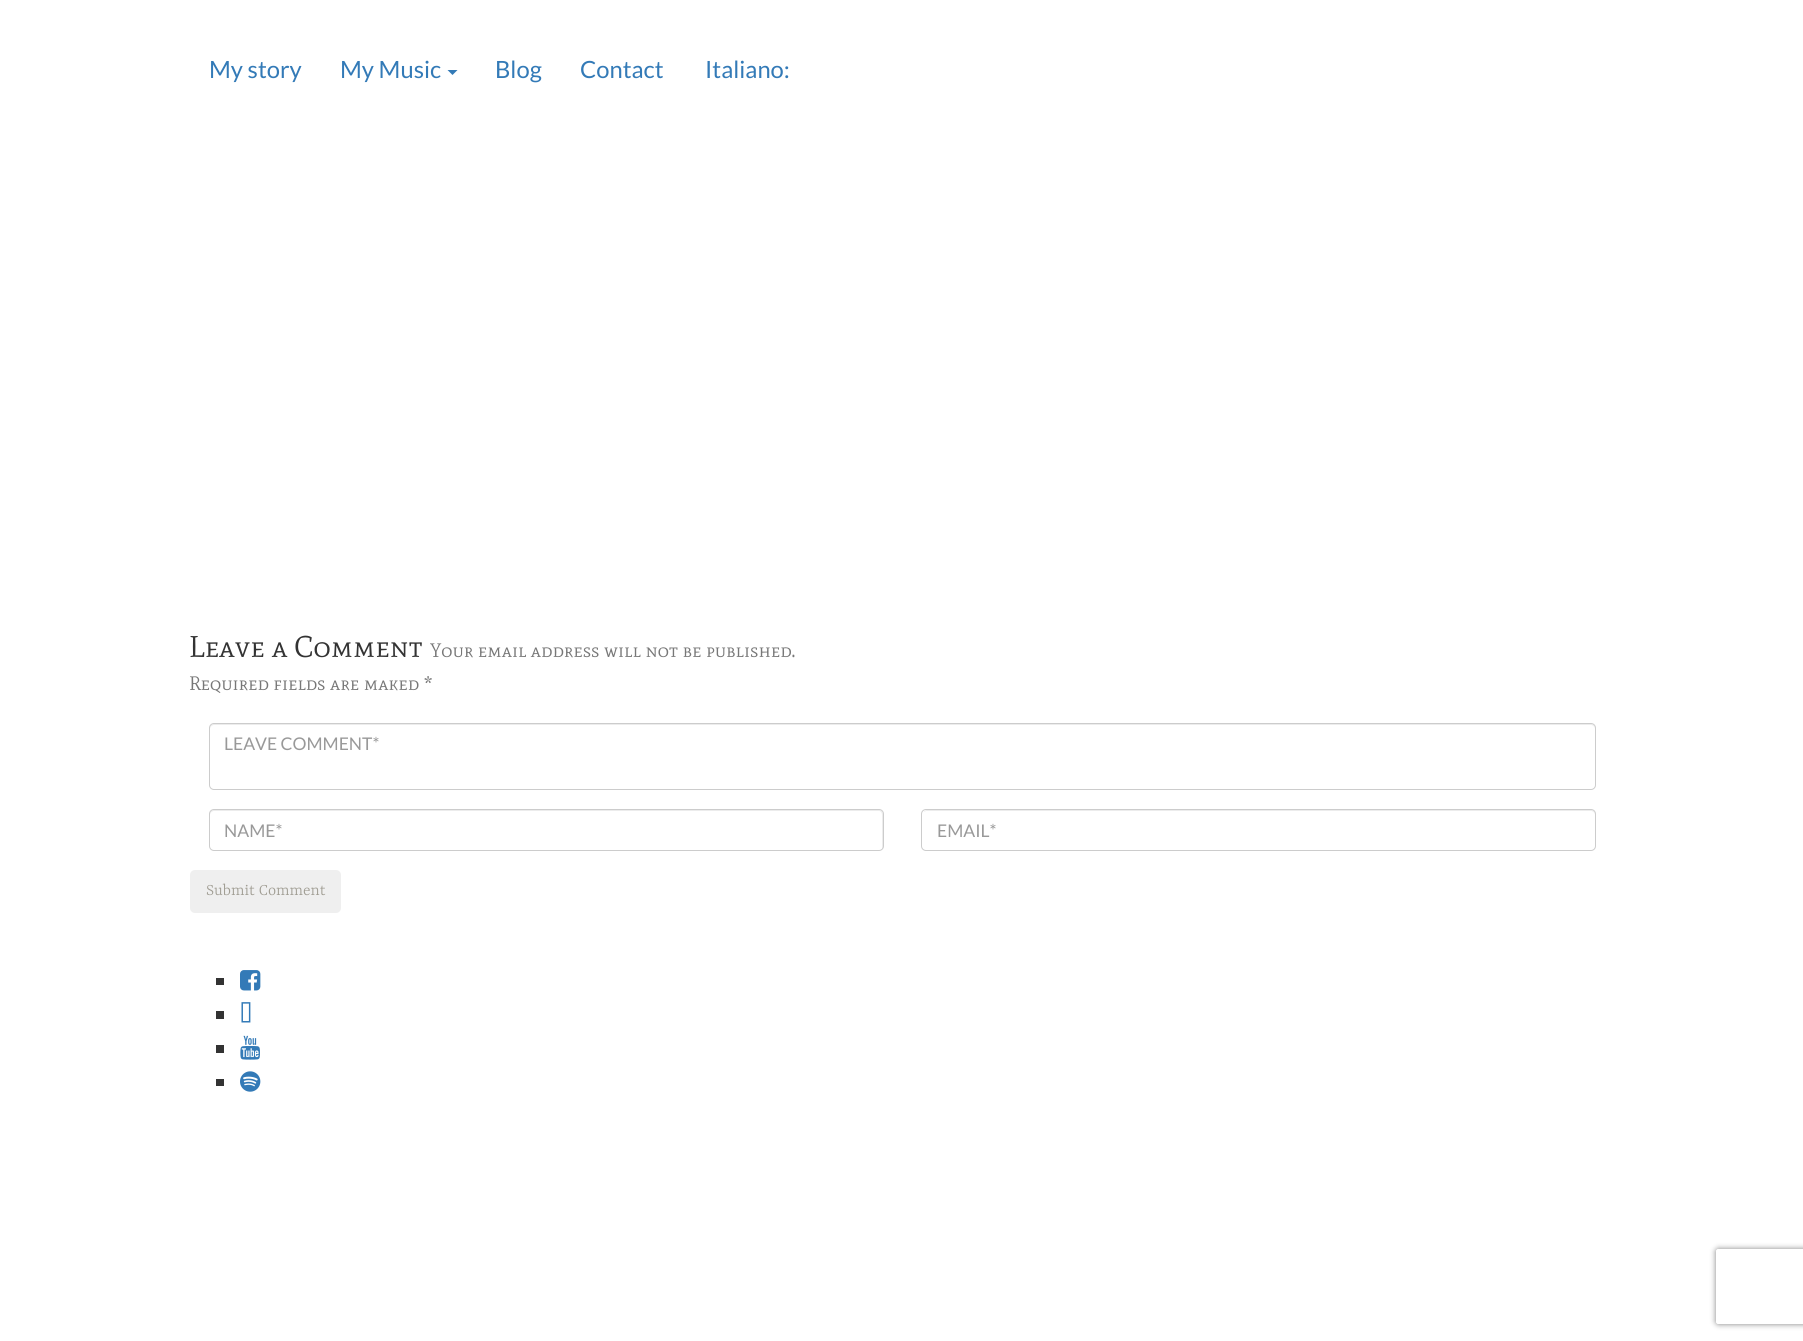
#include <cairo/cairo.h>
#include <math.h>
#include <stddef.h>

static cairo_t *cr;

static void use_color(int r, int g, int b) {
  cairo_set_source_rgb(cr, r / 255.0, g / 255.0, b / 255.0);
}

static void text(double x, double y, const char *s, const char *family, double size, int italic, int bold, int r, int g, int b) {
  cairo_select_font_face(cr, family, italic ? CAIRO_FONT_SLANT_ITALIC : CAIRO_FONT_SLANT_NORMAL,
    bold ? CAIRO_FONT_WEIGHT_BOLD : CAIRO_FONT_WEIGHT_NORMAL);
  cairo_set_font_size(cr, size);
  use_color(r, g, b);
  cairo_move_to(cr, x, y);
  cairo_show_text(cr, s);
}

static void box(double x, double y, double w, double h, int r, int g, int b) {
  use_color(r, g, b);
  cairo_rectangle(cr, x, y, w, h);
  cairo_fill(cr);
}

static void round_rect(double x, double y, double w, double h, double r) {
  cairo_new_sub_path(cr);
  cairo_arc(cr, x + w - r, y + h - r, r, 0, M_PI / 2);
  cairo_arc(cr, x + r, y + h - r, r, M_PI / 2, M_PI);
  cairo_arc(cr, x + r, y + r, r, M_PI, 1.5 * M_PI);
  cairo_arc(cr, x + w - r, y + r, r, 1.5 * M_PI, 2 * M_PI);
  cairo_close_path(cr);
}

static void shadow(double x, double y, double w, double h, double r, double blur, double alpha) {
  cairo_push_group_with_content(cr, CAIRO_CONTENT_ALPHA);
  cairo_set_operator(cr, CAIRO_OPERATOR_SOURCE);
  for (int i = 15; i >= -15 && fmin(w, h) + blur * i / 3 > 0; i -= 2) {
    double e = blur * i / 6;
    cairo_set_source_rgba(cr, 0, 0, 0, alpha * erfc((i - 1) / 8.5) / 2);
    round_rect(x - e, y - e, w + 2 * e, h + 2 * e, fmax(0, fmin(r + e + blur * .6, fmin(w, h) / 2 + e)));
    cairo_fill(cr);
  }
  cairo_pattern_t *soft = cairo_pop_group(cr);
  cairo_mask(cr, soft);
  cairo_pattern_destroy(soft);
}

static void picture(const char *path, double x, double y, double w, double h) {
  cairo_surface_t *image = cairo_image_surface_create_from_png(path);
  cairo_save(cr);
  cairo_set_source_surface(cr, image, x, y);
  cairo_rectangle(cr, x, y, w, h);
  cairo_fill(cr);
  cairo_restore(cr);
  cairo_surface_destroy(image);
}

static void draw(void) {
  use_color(255, 255, 255);
  cairo_paint(cr);
  use_color(51, 122, 183);
  cairo_new_path(cr);
  cairo_move_to(cr, 447.5, 70);
  cairo_line_to(cr, 457.5, 70);
  cairo_line_to(cr, 452.5, 75);
  cairo_close_path(cr);
  cairo_fill(cr);
  use_color(236, 236, 236);
  cairo_new_path(cr);
  cairo_move_to(cr, 214, 725);
  cairo_line_to(cr, 1591, 725);
  cairo_curve_to(cr, 1593, 725, 1595, 727, 1595, 729);
  cairo_line_to(cr, 1595, 728);
  cairo_curve_to(cr, 1595, 726, 1593, 724, 1591, 724);
  cairo_line_to(cr, 214, 724);
  cairo_curve_to(cr, 212, 724, 210, 726, 210, 728);
  cairo_line_to(cr, 210, 729);
  cairo_curve_to(cr, 210, 727, 212, 725, 214, 725);
  cairo_close_path(cr);
  cairo_fill(cr);
  round_rect(209.5, 723.5, 1386, 66, 4.5);
  use_color(204, 204, 204);
  cairo_set_line_width(cr, 1);
  cairo_stroke(cr);
  use_color(236, 236, 236);
  cairo_new_path(cr);
  cairo_move_to(cr, 214, 811);
  cairo_line_to(cr, 879, 811);
  cairo_curve_to(cr, 881, 811, 882, 813, 882, 815);
  cairo_line_to(cr, 882, 849);
  cairo_curve_to(cr, 883, 848, 883, 847, 883, 846);
  cairo_line_to(cr, 883, 814);
  cairo_curve_to(cr, 883, 812, 881, 810, 879, 810);
  cairo_line_to(cr, 214, 810);
  cairo_curve_to(cr, 212, 810, 210, 812, 210, 814);
  cairo_line_to(cr, 210, 815);
  cairo_curve_to(cr, 210, 813, 212, 811, 214, 811);
  cairo_close_path(cr);
  cairo_fill(cr);
  round_rect(209.5, 809.5, 674, 41, 4.5);
  use_color(204, 204, 204);
  cairo_stroke(cr);
  use_color(236, 236, 236);
  cairo_new_path(cr);
  cairo_move_to(cr, 926, 811);
  cairo_line_to(cr, 1591, 811);
  cairo_curve_to(cr, 1593, 811, 1595, 813, 1595, 815);
  cairo_line_to(cr, 1595, 814);
  cairo_curve_to(cr, 1595, 812, 1593, 810, 1591, 810);
  cairo_line_to(cr, 927, 810);
  cairo_curve_to(cr, 926, 810, 924, 811, 924, 812);
  cairo_close_path(cr);
  cairo_fill(cr);
  round_rect(921.5, 809.5, 674, 41, 4.5);
  use_color(204, 204, 204);
  cairo_stroke(cr);
  use_color(239, 239, 239);
  round_rect(190, 870, 151, 43, 5);
  cairo_fill(cr);
  box(216, 978, 8, 7, 51, 51, 51);
  picture("img_01.png", 240, 970, 21, 21);
  box(216, 1011, 8, 8, 51, 51, 51);
  picture("img_02.png", 241, 1002, 10, 21);
  box(216, 1045, 8, 8, 51, 51, 51);
  picture("img_03.png", 240, 1035, 20, 25);
  box(216, 1079, 8, 7, 51, 51, 51);
  picture("img_04.png", 240, 1071, 21, 21);
  cairo_save(cr);
  cairo_set_fill_rule(cr, CAIRO_FILL_RULE_EVEN_ODD);
  cairo_new_path(cr);
  cairo_move_to(cr, 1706, 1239);
  cairo_line_to(cr, 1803, 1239);
  cairo_line_to(cr, 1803, 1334);
  cairo_line_to(cr, 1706, 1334);
  cairo_close_path(cr);
  cairo_move_to(cr, 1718.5, 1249);
  cairo_line_to(cr, 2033.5, 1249);
  cairo_curve_to(cr, 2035, 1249, 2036, 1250, 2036, 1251.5);
  cairo_line_to(cr, 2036, 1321.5);
  cairo_curve_to(cr, 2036, 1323, 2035, 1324, 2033.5, 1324);
  cairo_line_to(cr, 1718.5, 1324);
  cairo_curve_to(cr, 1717, 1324, 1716, 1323, 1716, 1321.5);
  cairo_line_to(cr, 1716, 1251.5);
  cairo_curve_to(cr, 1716, 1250, 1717, 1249, 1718.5, 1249);
  cairo_close_path(cr);
  cairo_clip(cr);
  use_color(128, 128, 128);
  shadow(1716, 1249, 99, 75, 2.5, 3, 1);
  cairo_restore(cr);
  text(209, 78, "My story", "Lato", 23.75, 0, 0, 51, 122, 183);
  text(340, 78, "My Music", "Lato", 23.75, 0, 0, 51, 122, 183);
  text(495, 78, "Blog", "Lato", 23.75, 0, 0, 51, 122, 183);
  text(580, 78, "Contact", "Lato", 23.75, 0, 0, 51, 122, 183);
  text(705, 78, "Italiano:", "Lato", 23.75, 0, 0, 51, 122, 183);
  text(189, 657, "Leave a Comment", "Mate SC", 30, 0, 0, 51, 51, 51);
  text(430, 657, "Your email address will not be published.", "Mate SC", 19.5, 0, 0, 119, 119, 119);
  text(189, 690, "Required fields are maked *", "Mate SC", 19.5, 0, 0, 119, 119, 119);
  text(224, 750, "LEAVE COMMENT*", "Lato", 17.5, 0, 0, 153, 153, 153);
  text(224, 837, "NAME*", "Lato", 17.5, 0, 0, 153, 153, 153);
  text(937, 837, "EMAIL*", "Lato", 17.5, 0, 0, 153, 153, 153);
  text(206, 895, "Submit Comment", "Rasa Light", 17.5, 0, 0, 160, 157, 147);
}

int main(void) {
  cairo_surface_t *surface = cairo_image_surface_create(CAIRO_FORMAT_RGB24, 1803, 1341);
  cr = cairo_create(surface);
  cairo_font_options_t *options = cairo_font_options_create();
  cairo_font_options_set_hint_metrics(options, CAIRO_HINT_METRICS_OFF);
  cairo_font_options_set_hint_style(options, CAIRO_HINT_STYLE_NONE);
  cairo_set_font_options(cr, options);
  cairo_set_miter_limit(cr, 4);
  draw();
  cairo_surface_write_to_png(surface, "out.png");
  cairo_font_options_destroy(options);
  cairo_destroy(cr);
  cairo_surface_destroy(surface);
  return 0;
}
